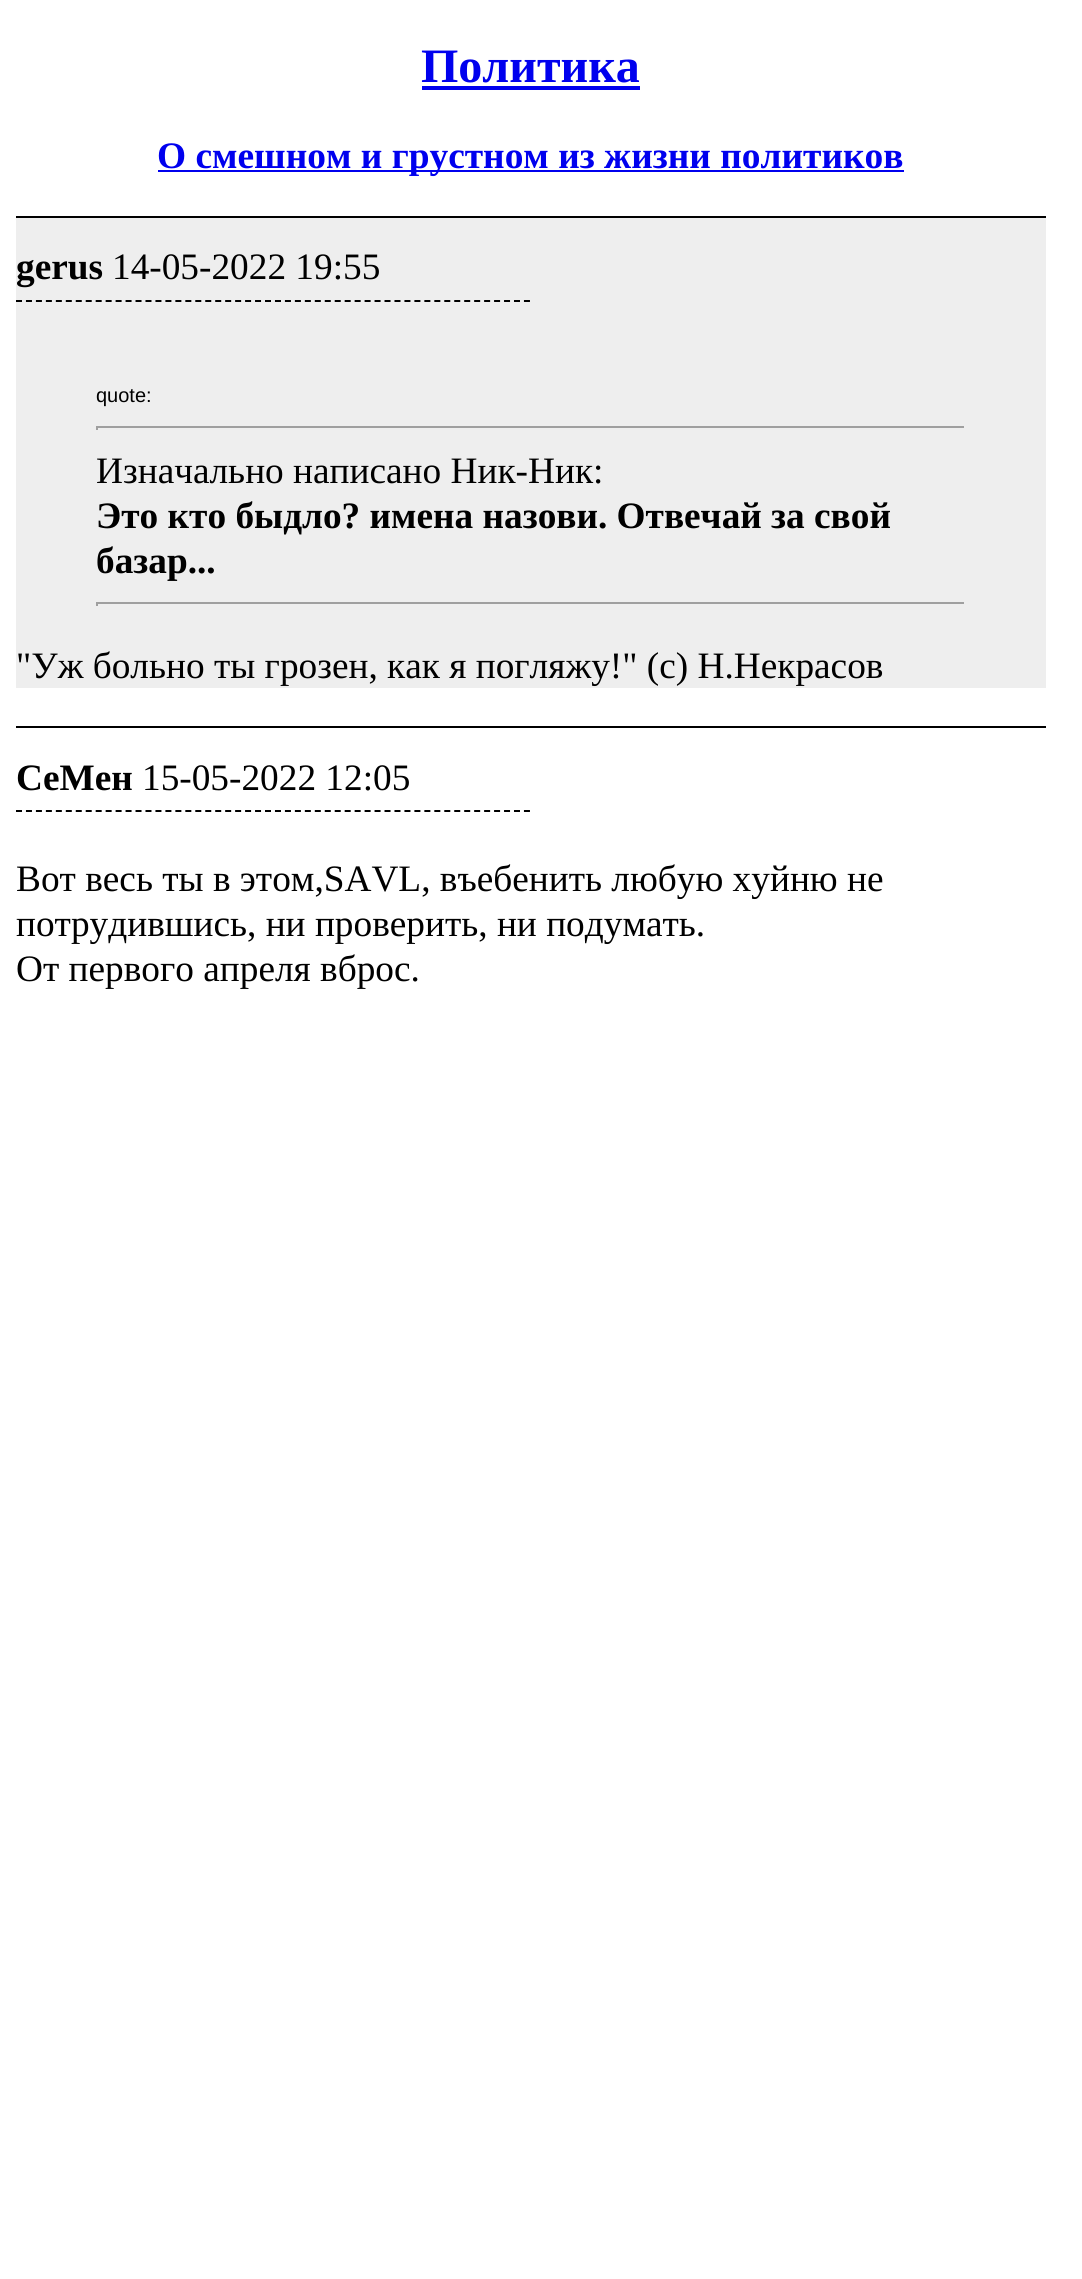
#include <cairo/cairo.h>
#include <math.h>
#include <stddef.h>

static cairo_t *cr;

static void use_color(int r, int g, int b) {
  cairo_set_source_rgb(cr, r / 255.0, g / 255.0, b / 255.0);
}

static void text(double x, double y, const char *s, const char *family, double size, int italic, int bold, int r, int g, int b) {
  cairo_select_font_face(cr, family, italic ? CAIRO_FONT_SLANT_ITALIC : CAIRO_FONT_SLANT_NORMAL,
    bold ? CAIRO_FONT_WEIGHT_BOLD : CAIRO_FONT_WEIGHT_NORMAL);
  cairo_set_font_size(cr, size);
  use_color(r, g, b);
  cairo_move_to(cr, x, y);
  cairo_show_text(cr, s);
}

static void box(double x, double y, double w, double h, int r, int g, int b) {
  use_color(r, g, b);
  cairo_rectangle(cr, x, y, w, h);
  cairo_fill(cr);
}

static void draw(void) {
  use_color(255, 255, 255);
  cairo_paint(cr);
  box(422, 86, 218, 4, 0, 0, 238);
  box(158, 170, 746, 2, 0, 0, 238);
  box(16, 218, 1030, 470, 238, 238, 238);
  box(16, 216, 1030, 2, 0, 0, 0);
  cairo_new_path(cr);
  cairo_move_to(cr, 16, 301);
  cairo_line_to(cr, 530, 301);
  cairo_set_dash(cr, (double[]){6, 3.96}, 2, 0);
  cairo_stroke(cr);
  box(96, 426, 870, 2, 159, 159, 159);
  box(964, 426, 2, 4, 238, 238, 238);
  box(96, 426, 2, 4, 159, 159, 159);
  box(96, 602, 870, 2, 159, 159, 159);
  box(964, 602, 2, 4, 238, 238, 238);
  box(96, 602, 2, 4, 159, 159, 159);
  box(16, 726, 1030, 2, 0, 0, 0);
  cairo_new_path(cr);
  cairo_move_to(cr, 16, 811);
  cairo_line_to(cr, 530, 811);
  cairo_stroke(cr);
  text(421, 82, "Политика", "Liberation Serif", 48, 0, 1, 0, 0, 238);
  text(157, 168, "О смешном и грустном из жизни политиков", "Liberation Serif", 37.4, 0, 1, 0, 0, 238);
  text(16, 279, "gerus", "Liberation Serif", 37.3, 0, 1, 0, 0, 0);
  text(112, 279, "14-05-2022 19:55", "Liberation Serif", 37.3, 0, 0, 0, 0, 0);
  text(96, 402, "quote:", "Liberation Sans", 20, 0, 0, 0, 0, 0);
  text(96, 483, "Изначально написано Ник-Ник:", "Liberation Serif", 37.3, 0, 0, 0, 0, 0);
  text(96, 528, "Это кто быдло? имена назови. Отвечай за свой", "Liberation Serif", 37.3, 0, 1, 0, 0, 0);
  text(96, 573, "базар...", "Liberation Serif", 37.3, 0, 1, 0, 0, 0);
  text(16, 678, "\"Уж больно ты грозен, как я погляжу!\" (с) Н.Некрасов", "Liberation Serif", 37.3, 0, 0, 0, 0, 0);
  text(16, 790, "СеМен", "Liberation Serif", 37.3, 0, 1, 0, 0, 0);
  text(142, 790, "15-05-2022 12:05", "Liberation Serif", 37.3, 0, 0, 0, 0, 0);
  text(16, 891, "Вот весь ты в этом,SAVL, въебенить любую хуйню не", "Liberation Serif", 37.3, 0, 0, 0, 0, 0);
  text(16, 936, "потрудившись, ни проверить, ни подумать.", "Liberation Serif", 37.3, 0, 0, 0, 0, 0);
  text(16, 981, "От первого апреля вброс.", "Liberation Serif", 37.3, 0, 0, 0, 0, 0);
}

int main(void) {
  cairo_surface_t *surface = cairo_image_surface_create(CAIRO_FORMAT_RGB24, 1082, 2279);
  cr = cairo_create(surface);
  cairo_font_options_t *options = cairo_font_options_create();
  cairo_font_options_set_hint_metrics(options, CAIRO_HINT_METRICS_OFF);
  cairo_font_options_set_hint_style(options, CAIRO_HINT_STYLE_NONE);
  cairo_set_font_options(cr, options);
  cairo_set_miter_limit(cr, 4);
  draw();
  cairo_surface_write_to_png(surface, "out.png");
  cairo_font_options_destroy(options);
  cairo_destroy(cr);
  cairo_surface_destroy(surface);
  return 0;
}
